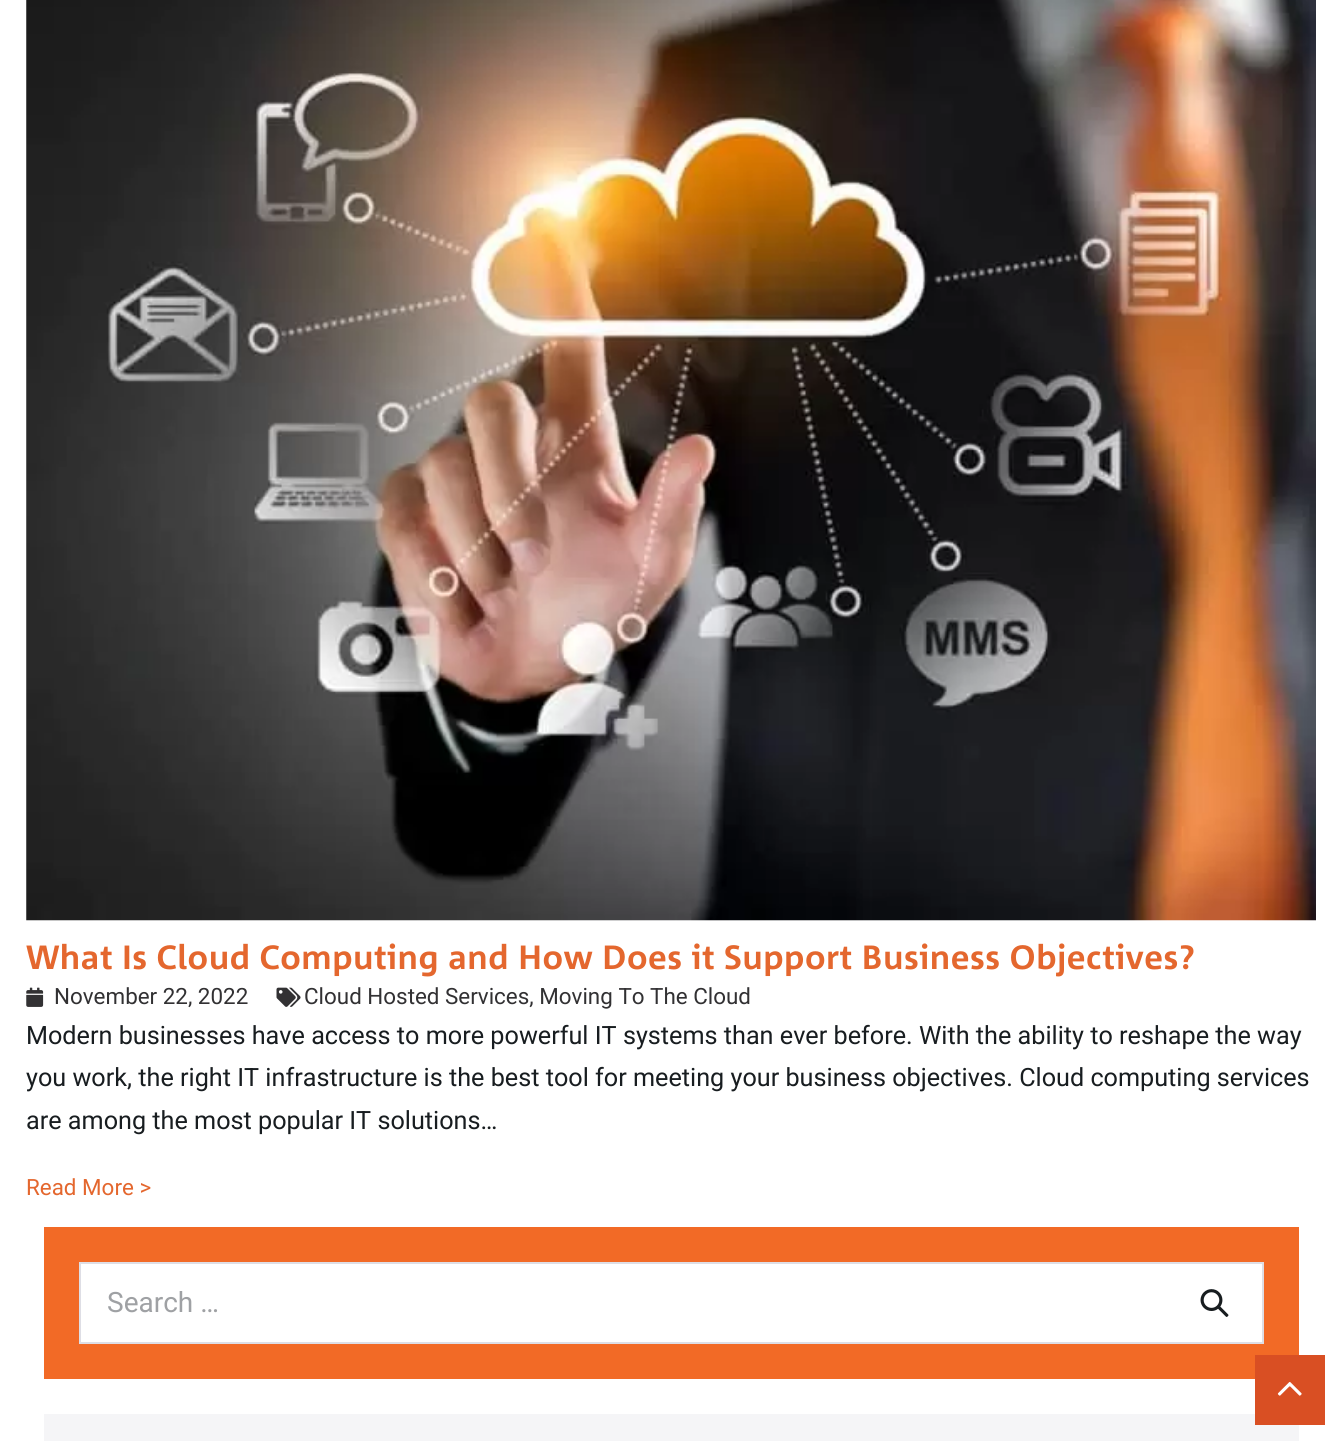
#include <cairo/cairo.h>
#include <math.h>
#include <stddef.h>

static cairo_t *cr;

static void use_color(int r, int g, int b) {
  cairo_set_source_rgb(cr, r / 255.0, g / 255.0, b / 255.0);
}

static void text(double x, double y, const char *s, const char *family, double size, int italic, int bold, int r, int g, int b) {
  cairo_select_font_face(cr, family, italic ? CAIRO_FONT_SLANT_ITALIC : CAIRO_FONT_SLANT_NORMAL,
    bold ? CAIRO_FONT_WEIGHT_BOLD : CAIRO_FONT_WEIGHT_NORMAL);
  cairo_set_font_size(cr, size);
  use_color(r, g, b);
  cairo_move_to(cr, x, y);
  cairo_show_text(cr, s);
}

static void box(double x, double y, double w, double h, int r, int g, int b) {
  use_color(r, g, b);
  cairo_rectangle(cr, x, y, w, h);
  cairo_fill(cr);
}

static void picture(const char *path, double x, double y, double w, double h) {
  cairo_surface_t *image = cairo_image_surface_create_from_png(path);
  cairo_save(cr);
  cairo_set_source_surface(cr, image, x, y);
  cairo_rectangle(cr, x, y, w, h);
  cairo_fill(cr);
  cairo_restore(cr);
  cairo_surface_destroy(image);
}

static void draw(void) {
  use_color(255, 255, 255);
  cairo_paint(cr);
  picture("img_01.png", 26, 0, 1290, 921);
  picture("img_02.png", 26, 987, 18, 20);
  picture("img_03.png", 276, 987, 25, 20);
  box(44, 1227, 1255, 152, 242, 106, 38);
  use_color(255, 255, 255);
  cairo_rectangle(cr, 80, 1263, 1183, 80);
  cairo_fill_preserve(cr);
  use_color(222, 222, 229);
  cairo_stroke(cr);
  picture("img_04.png", 1200, 1289, 29, 28);
  box(44, 1414, 1255, 27, 245, 245, 247);
  box(1255, 1355, 70, 70, 217, 79, 35);
  picture("img_05.png", 1277, 1382, 25, 14);
  text(26, 969, "What Is Cloud Computing and How Does it Support Business Objectives?", "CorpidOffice", 33.6, 0, 1, 228, 103, 46);
  text(54, 1004, "November 22, 2022", "Roboto", 22.4, 0, 0, 50, 49, 51);
  text(304, 1004, "Cloud Hosted Services, Moving To The Cloud", "Roboto", 22.4, 0, 0, 50, 49, 51);
  text(26, 1044, "Modern businesses have access to more powerful IT systems than ever before. With the ability to reshape the way", "Roboto", 25.2, 0, 0, 24, 29, 32);
  text(26, 1086, "you work, the right IT infrastructure is the best tool for meeting your business objectives. Cloud computing services", "Roboto", 25.2, 0, 0, 24, 29, 32);
  text(26, 1129, "are among the most popular IT solutions…", "Roboto", 25.2, 0, 0, 24, 29, 32);
  text(26, 1195, "Read More >", "Roboto", 22.4, 0, 0, 228, 103, 46);
  text(107, 1312, "Search …", "Roboto", 28, 0, 0, 159, 161, 164);
}

int main(void) {
  cairo_surface_t *surface = cairo_image_surface_create(CAIRO_FORMAT_RGB24, 1341, 1441);
  cr = cairo_create(surface);
  cairo_font_options_t *options = cairo_font_options_create();
  cairo_font_options_set_hint_metrics(options, CAIRO_HINT_METRICS_OFF);
  cairo_font_options_set_hint_style(options, CAIRO_HINT_STYLE_NONE);
  cairo_set_font_options(cr, options);
  cairo_set_miter_limit(cr, 4);
  draw();
  cairo_surface_write_to_png(surface, "out.png");
  cairo_font_options_destroy(options);
  cairo_destroy(cr);
  cairo_surface_destroy(surface);
  return 0;
}
